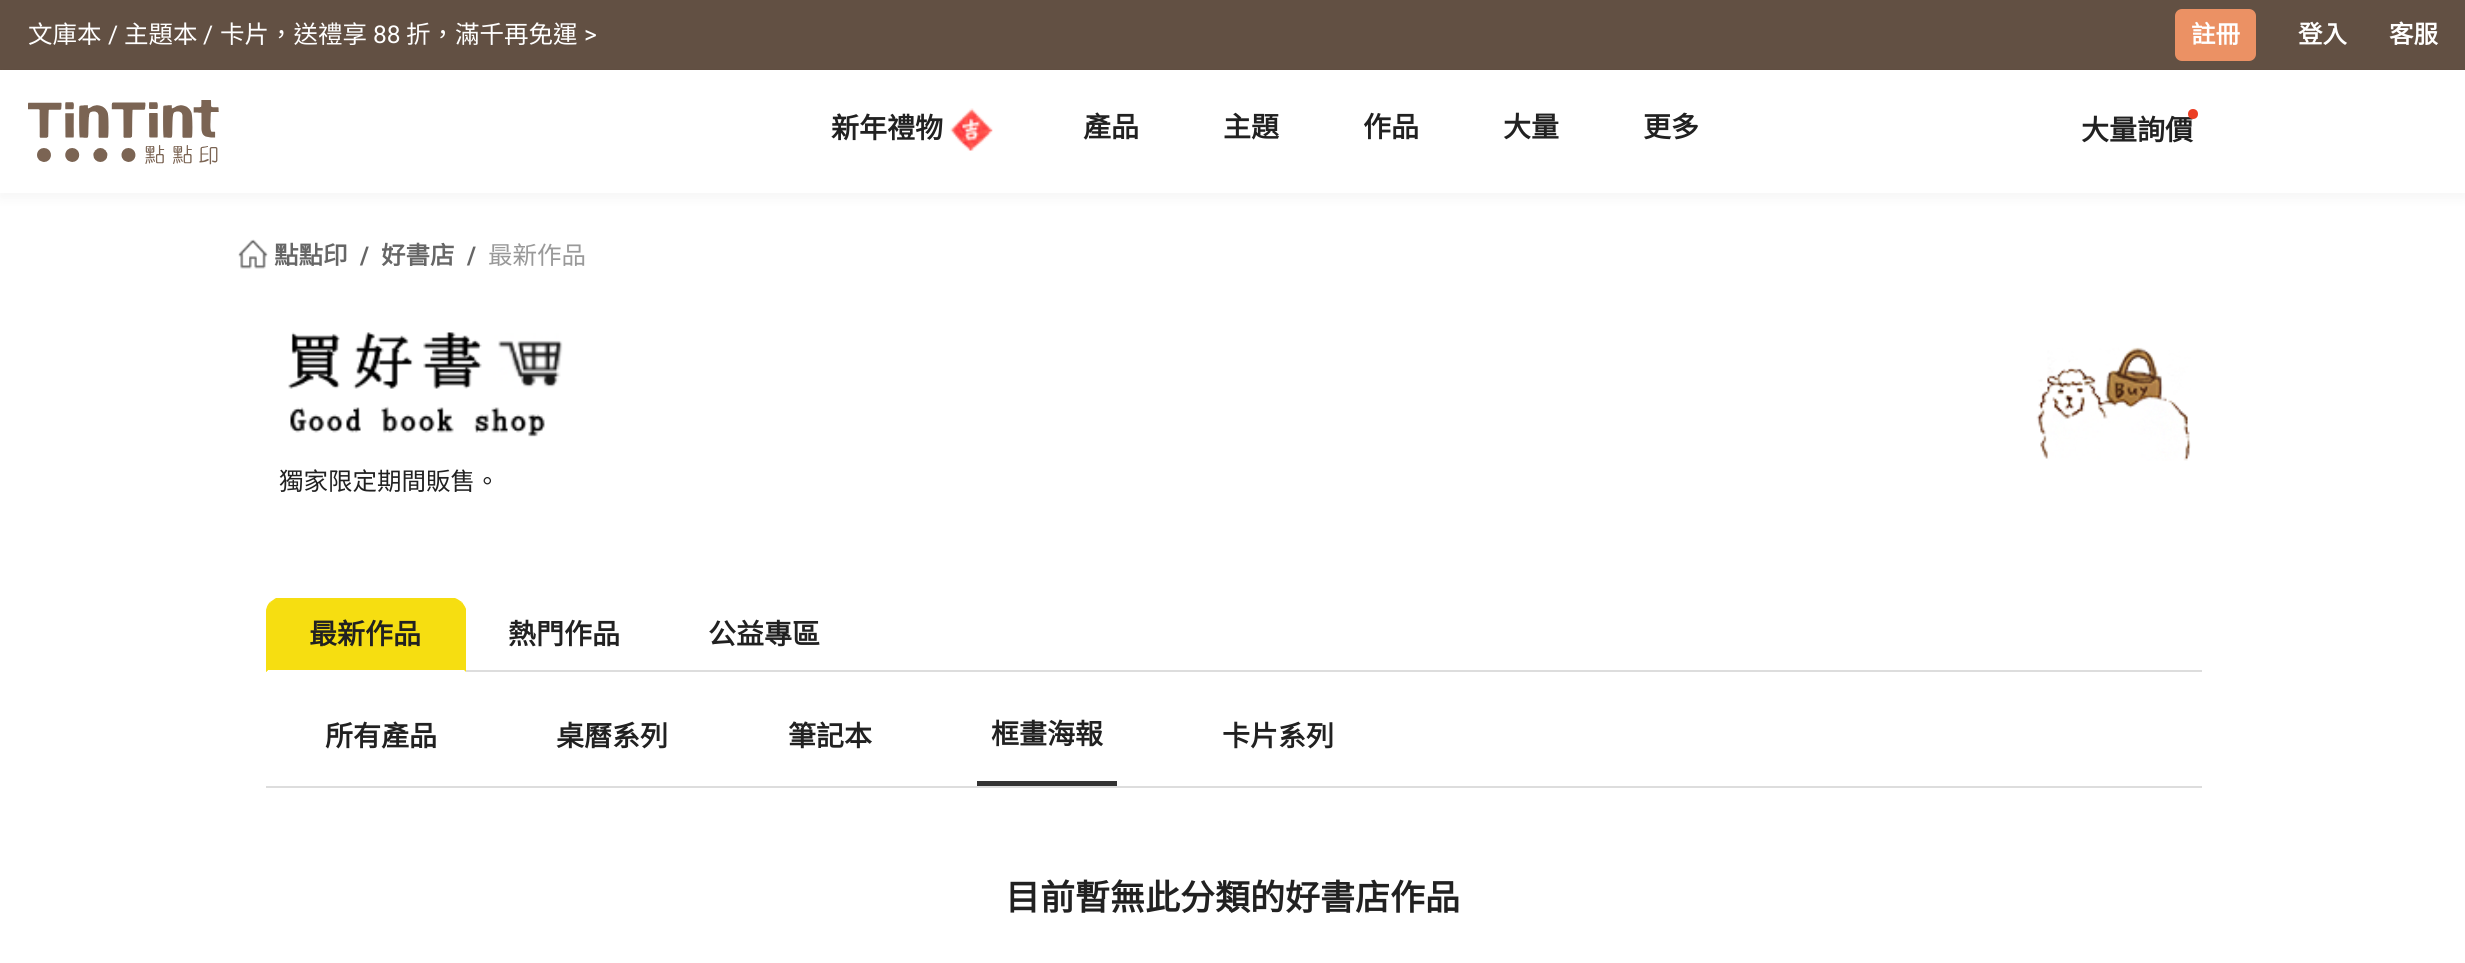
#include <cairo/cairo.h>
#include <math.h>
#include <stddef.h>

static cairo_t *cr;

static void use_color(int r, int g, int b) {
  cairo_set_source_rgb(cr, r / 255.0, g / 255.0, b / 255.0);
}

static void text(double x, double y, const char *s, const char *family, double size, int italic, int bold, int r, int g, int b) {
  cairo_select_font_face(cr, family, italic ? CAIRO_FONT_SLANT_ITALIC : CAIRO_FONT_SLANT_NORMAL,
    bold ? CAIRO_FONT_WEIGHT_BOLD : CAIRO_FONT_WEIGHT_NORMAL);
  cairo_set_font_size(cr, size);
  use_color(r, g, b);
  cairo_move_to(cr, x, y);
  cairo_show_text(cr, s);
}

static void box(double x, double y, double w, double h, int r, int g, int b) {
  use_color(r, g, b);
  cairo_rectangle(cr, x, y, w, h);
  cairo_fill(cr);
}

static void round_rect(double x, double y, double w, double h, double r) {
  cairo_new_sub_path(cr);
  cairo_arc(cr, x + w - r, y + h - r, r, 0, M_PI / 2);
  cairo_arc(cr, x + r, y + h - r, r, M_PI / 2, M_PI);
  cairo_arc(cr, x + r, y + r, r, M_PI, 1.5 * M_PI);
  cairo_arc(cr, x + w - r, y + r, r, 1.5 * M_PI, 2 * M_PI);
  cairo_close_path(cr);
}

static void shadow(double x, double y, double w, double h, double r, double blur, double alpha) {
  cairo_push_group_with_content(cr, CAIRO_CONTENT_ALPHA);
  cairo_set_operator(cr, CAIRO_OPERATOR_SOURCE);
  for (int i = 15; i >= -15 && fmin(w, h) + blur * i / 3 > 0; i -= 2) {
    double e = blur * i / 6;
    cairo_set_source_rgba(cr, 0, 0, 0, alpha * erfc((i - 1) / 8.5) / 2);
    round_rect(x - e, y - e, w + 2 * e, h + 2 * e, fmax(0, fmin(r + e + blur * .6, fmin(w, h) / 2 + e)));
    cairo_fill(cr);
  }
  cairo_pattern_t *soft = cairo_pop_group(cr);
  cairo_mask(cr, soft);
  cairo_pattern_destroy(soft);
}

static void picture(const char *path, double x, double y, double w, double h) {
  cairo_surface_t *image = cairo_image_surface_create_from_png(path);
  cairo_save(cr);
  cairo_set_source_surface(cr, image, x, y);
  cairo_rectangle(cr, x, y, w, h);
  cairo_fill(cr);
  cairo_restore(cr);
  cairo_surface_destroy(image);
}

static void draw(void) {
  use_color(255, 255, 255);
  cairo_paint(cr);
  box(0, 0, 2465, 70, 98, 80, 67);
  use_color(235, 145, 100);
  round_rect(2176, 10, 79, 50, 6);
  cairo_fill_preserve(cr);
  cairo_stroke(cr);
  use_color(0, 0, 0);
  shadow(0, 75, 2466, 123, 0, 7, 0.04);
  box(0, 70, 2465, 123, 255, 255, 255);
  picture("img_01.png", 28, 100, 191, 65);
  picture("img_02.png", 950, 108, 43, 43);
  picture("img_03.png", 238, 239, 30, 30);
  picture("img_04.png", 2036, 347, 155, 114);
  picture("img_05.png", 288, 332, 275, 105);
  box(466, 670, 1736, 2, 221, 221, 221);
  use_color(246, 222, 17);
  cairo_new_path(cr);
  cairo_move_to(cr, 280, 599);
  cairo_line_to(cr, 452, 599);
  cairo_curve_to(cr, 459.5, 599, 466, 605.5, 466, 613);
  cairo_line_to(cr, 466, 672);
  cairo_line_to(cr, 266, 672);
  cairo_line_to(cr, 266, 613);
  cairo_curve_to(cr, 266, 605.5, 272.5, 599, 280, 599);
  cairo_close_path(cr);
  cairo_fill(cr);
  cairo_new_path(cr);
  cairo_move_to(cr, 280, 600);
  cairo_curve_to(cr, 276, 600, 273, 602, 271, 604);
  cairo_line_to(cr, 270, 602);
  cairo_curve_to(cr, 272, 601, 274, 599, 276, 598);
  cairo_line_to(cr, 455, 598);
  cairo_curve_to(cr, 458, 599, 460, 601, 462, 602);
  cairo_line_to(cr, 460, 604);
  cairo_curve_to(cr, 458, 602, 455, 600, 452, 600);
  cairo_close_path(cr);
  cairo_fill(cr);
  cairo_new_path(cr);
  cairo_move_to(cr, 466, 609);
  cairo_line_to(cr, 466, 672);
  cairo_line_to(cr, 464, 670);
  cairo_line_to(cr, 464, 612);
  cairo_curve_to(cr, 464, 609, 462, 606, 460, 604);
  cairo_line_to(cr, 462, 602);
  cairo_curve_to(cr, 463, 604, 465, 606, 466, 609);
  cairo_close_path(cr);
  cairo_fill(cr);
  use_color(255, 255, 255);
  cairo_new_path(cr);
  cairo_move_to(cr, 466, 672);
  cairo_line_to(cr, 464, 670);
  cairo_line_to(cr, 268, 670);
  cairo_line_to(cr, 266, 672);
  cairo_close_path(cr);
  cairo_fill(cr);
  use_color(246, 222, 17);
  cairo_new_path(cr);
  cairo_move_to(cr, 266, 672);
  cairo_line_to(cr, 268, 670);
  cairo_line_to(cr, 268, 612);
  cairo_curve_to(cr, 268, 609, 269, 606, 271, 604);
  cairo_line_to(cr, 270, 602);
  cairo_curve_to(cr, 267, 605, 266, 609, 266, 612);
  cairo_close_path(cr);
  cairo_fill(cr);
  box(266, 786, 1936, 2, 221, 221, 221);
  box(977, 781, 140, 5, 51, 51, 51);
  text(28, 43, "文庫本", "Noto Sans CJK HK", 24.5, 0, 0, 255, 255, 255);
  text(108, 43, "/", "Roboto", 24.5, 0, 0, 255, 255, 255);
  text(124, 43, "主題本", "Noto Sans CJK HK", 24.5, 0, 0, 255, 255, 255);
  text(203, 43, "/", "Roboto", 24.5, 0, 0, 255, 255, 255);
  text(220, 43, "卡片，送禮享", "Noto Sans CJK HK", 24.5, 0, 0, 255, 255, 255);
  text(373, 43, "88", "Roboto", 24.5, 0, 0, 255, 255, 255);
  text(406, 43, "折，滿千再免運", "Noto Sans CJK HK", 24.5, 0, 0, 255, 255, 255);
  text(584, 43, ">", "Roboto", 24.5, 0, 0, 255, 255, 255);
  text(2191, 43, "註冊", "Noto Sans CJK HK", 24.5, 0, 1, 255, 255, 255);
  text(2298, 43, "登入", "Noto Sans CJK HK", 24.5, 0, 1, 255, 255, 255);
  text(2389, 43, "客服", "Noto Sans CJK HK", 24.5, 0, 1, 255, 255, 255);
  text(831, 138, "新年禮物", "Noto Sans CJK HK", 28, 0, 1, 33, 33, 33);
  text(1083, 137, "產品", "Noto Sans CJK HK", 28, 0, 1, 33, 33, 33);
  text(1223, 137, "主題", "Noto Sans CJK HK", 28, 0, 1, 33, 33, 33);
  text(1363, 137, "作品", "Noto Sans CJK HK", 28, 0, 1, 33, 33, 33);
  text(1503, 137, "大量", "Noto Sans CJK HK", 28, 0, 1, 33, 33, 33);
  text(1643, 137, "更多", "Noto Sans CJK HK", 28, 0, 1, 33, 33, 33);
  text(2081, 140, "大量詢價", "Noto Sans CJK HK", 28, 0, 1, 33, 33, 33);
  use_color(235, 62, 36);
  cairo_new_path(cr);
  cairo_arc(cr, 2193, 114, 5, 0, 2 * M_PI);
  cairo_fill(cr);
  text(274, 264, "點點印", "Noto Sans CJK HK", 24.5, 0, 1, 102, 102, 102);
  text(360, 264, "/", "Roboto", 24.5, 0, 1, 102, 102, 102);
  text(381, 264, "好書店", "Noto Sans CJK HK", 24.5, 0, 1, 102, 102, 102);
  text(467, 264, "/", "Roboto", 24.5, 0, 1, 102, 102, 102);
  text(488, 264, "最新作品", "Noto Sans CJK HK", 24.5, 0, 0, 153, 153, 153);
  text(279, 490, "獨家限定期間販售。", "Noto Sans CJK HK", 24.5, 0, 0, 33, 33, 33);
  text(309, 644, "最新作品", "Noto Sans CJK HK", 28, 0, 1, 33, 33, 33);
  text(508, 644, "熱門作品", "Noto Sans CJK HK", 28, 0, 1, 33, 33, 33);
  text(708, 644, "公益專區", "Noto Sans CJK HK", 28, 0, 1, 33, 33, 33);
  text(325, 746, "所有產品", "Noto Sans CJK HK", 28, 0, 1, 33, 33, 33);
  text(556, 746, "桌曆系列", "Noto Sans CJK HK", 28, 0, 1, 33, 33, 33);
  text(788, 746, "筆記本", "Noto Sans CJK HK", 28, 0, 1, 33, 33, 33);
  text(991, 744, "框畫海報", "Noto Sans CJK HK", 28, 0, 1, 33, 33, 33);
  text(1222, 746, "卡片系列", "Noto Sans CJK HK", 28, 0, 1, 33, 33, 33);
  text(1005, 910, "目前暫無此分類的好書店作品", "Noto Sans CJK HK", 35, 0, 1, 33, 33, 33);
}

int main(void) {
  cairo_surface_t *surface = cairo_image_surface_create(CAIRO_FORMAT_RGB24, 2465, 963);
  cr = cairo_create(surface);
  cairo_font_options_t *options = cairo_font_options_create();
  cairo_font_options_set_hint_metrics(options, CAIRO_HINT_METRICS_OFF);
  cairo_font_options_set_hint_style(options, CAIRO_HINT_STYLE_NONE);
  cairo_set_font_options(cr, options);
  cairo_set_miter_limit(cr, 4);
  draw();
  cairo_surface_write_to_png(surface, "out.png");
  cairo_font_options_destroy(options);
  cairo_destroy(cr);
  cairo_surface_destroy(surface);
  return 0;
}
